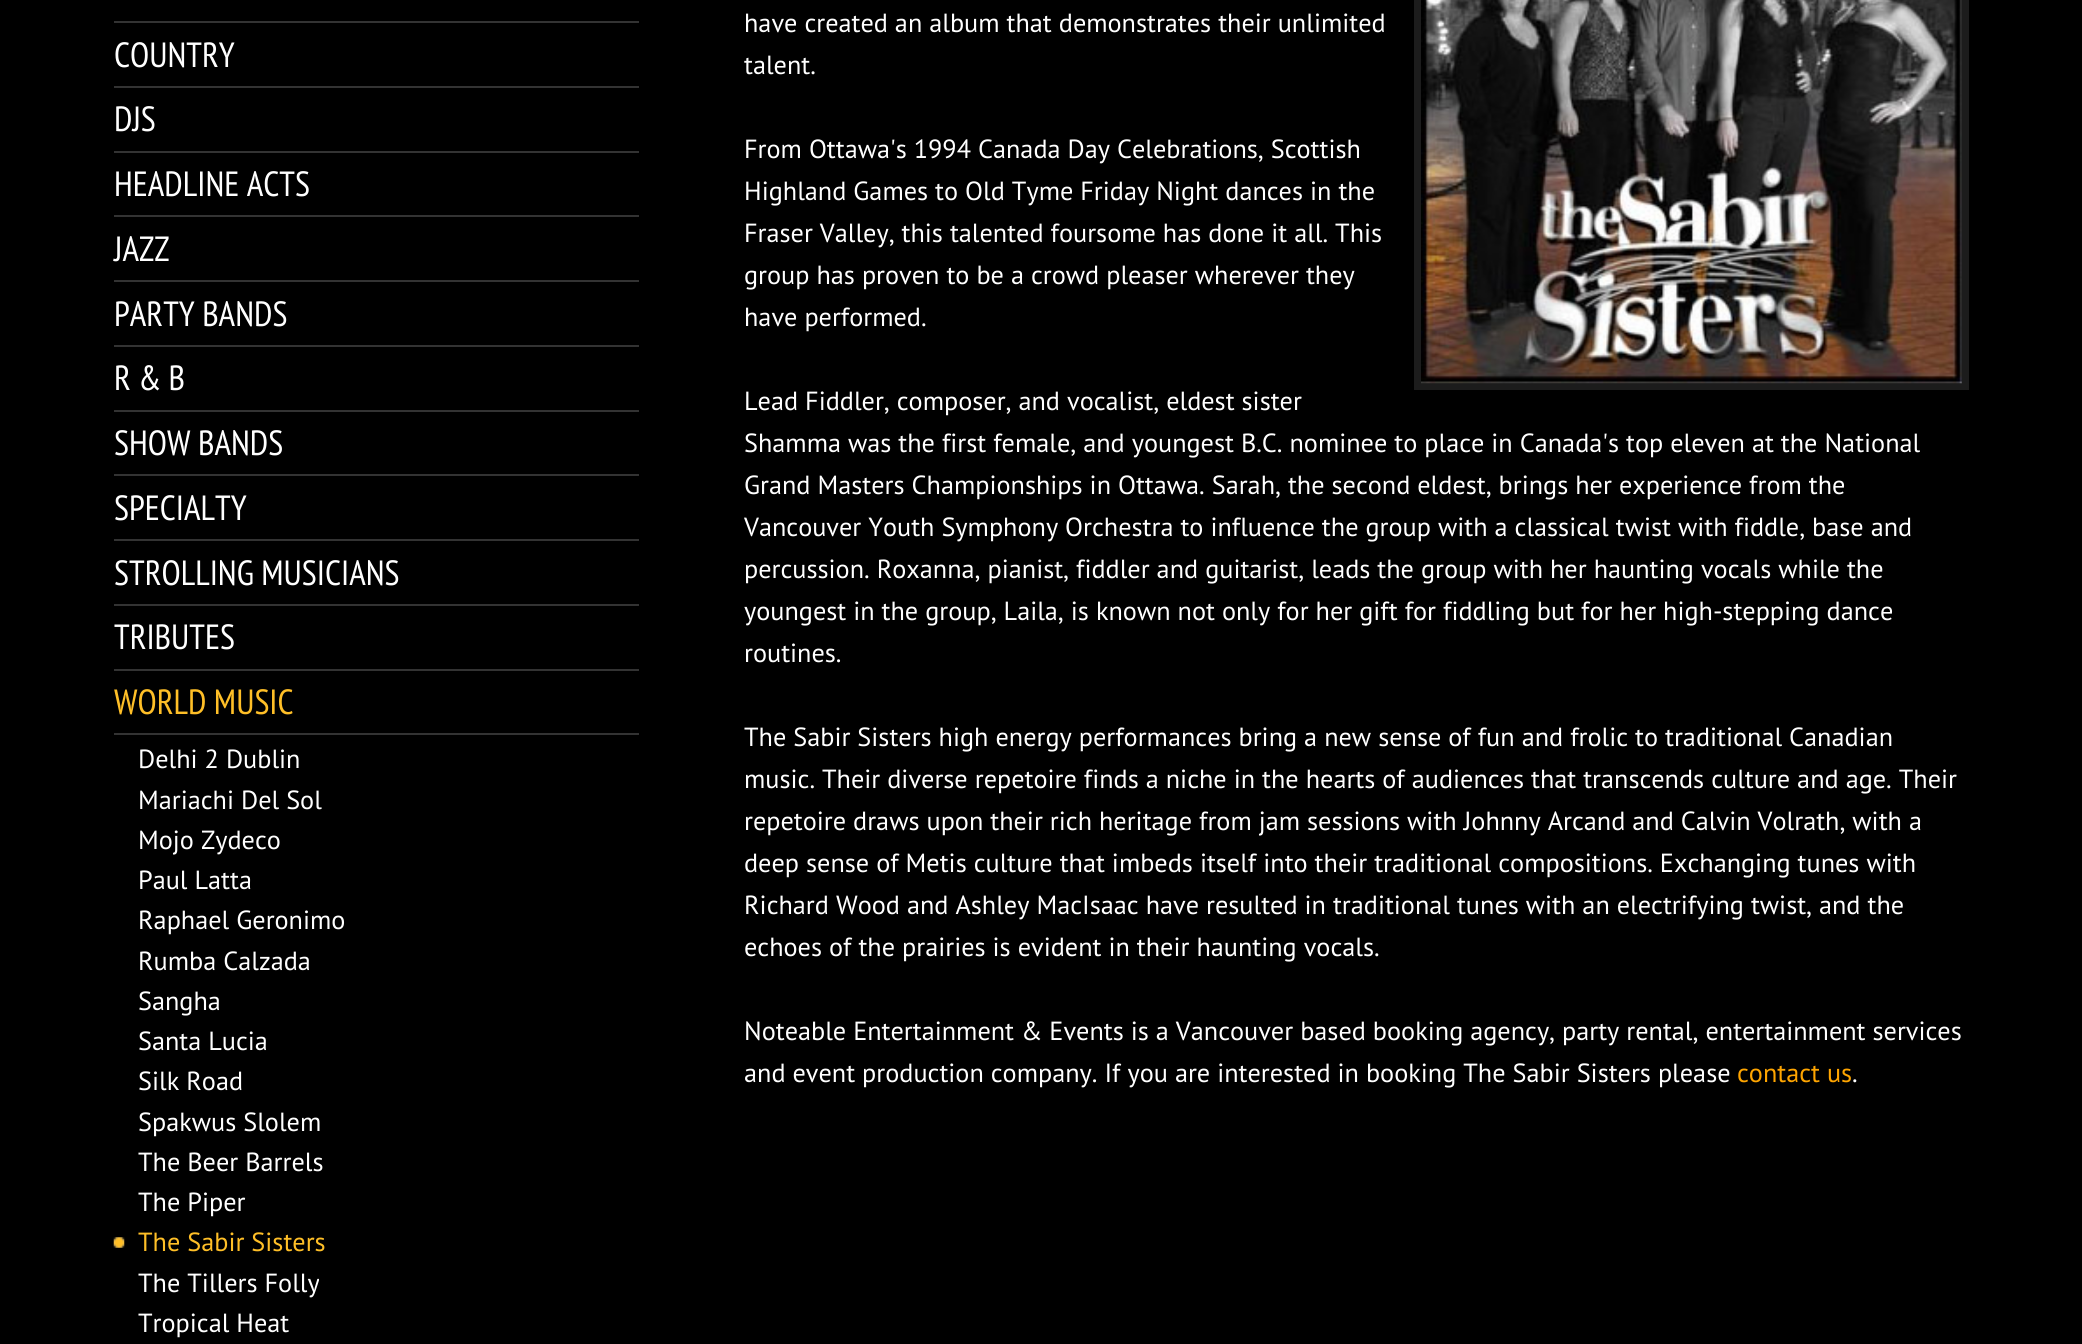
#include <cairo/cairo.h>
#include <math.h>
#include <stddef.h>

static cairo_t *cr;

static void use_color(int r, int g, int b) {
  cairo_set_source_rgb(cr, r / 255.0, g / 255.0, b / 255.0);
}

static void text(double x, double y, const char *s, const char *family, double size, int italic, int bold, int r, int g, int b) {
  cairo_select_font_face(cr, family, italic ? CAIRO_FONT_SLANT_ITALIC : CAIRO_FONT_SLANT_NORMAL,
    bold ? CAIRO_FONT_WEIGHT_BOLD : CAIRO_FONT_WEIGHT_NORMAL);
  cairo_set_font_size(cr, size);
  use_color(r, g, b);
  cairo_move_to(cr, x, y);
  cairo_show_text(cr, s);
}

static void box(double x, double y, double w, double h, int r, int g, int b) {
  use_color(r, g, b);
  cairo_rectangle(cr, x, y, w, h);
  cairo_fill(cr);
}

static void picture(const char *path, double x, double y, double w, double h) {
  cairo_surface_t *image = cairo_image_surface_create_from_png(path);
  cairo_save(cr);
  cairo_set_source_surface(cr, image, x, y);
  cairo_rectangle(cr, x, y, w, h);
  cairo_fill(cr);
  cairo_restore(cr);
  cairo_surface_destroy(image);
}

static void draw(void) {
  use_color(0, 0, 0);
  cairo_paint(cr);
  box(114, 21, 525, 2, 51, 51, 51);
  box(114, 86, 525, 2, 51, 51, 51);
  box(114, 151, 525, 2, 51, 51, 51);
  box(114, 215, 525, 2, 51, 51, 51);
  box(114, 280, 525, 2, 51, 51, 51);
  box(114, 345, 525, 2, 51, 51, 51);
  box(114, 410, 525, 2, 51, 51, 51);
  box(114, 474, 525, 2, 51, 51, 51);
  box(114, 539, 525, 2, 51, 51, 51);
  box(114, 604, 525, 2, 51, 51, 51);
  box(114, 669, 525, 2, 51, 51, 51);
  box(114, 733, 525, 2, 51, 51, 51);
  picture("img_01.png", 113, 1237, 12, 11);
  cairo_rectangle(cr, 1417.5, -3.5, 548, 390);
  use_color(28, 28, 28);
  cairo_set_line_width(cr, 7);
  cairo_stroke(cr);
  picture("img_02.png", 1421, 0, 541, 384);
  text(114, 67, "COUNTRY", "PT Sans Narrow", 35, 0, 0, 255, 255, 255);
  text(114, 131, "DJS", "PT Sans Narrow", 35, 0, 0, 255, 255, 255);
  text(114, 196, "HEADLINE ACTS", "PT Sans Narrow", 35, 0, 0, 255, 255, 255);
  text(114, 261, "JAZZ", "PT Sans Narrow", 35, 0, 0, 255, 255, 255);
  text(114, 326, "PARTY BANDS", "PT Sans Narrow", 35, 0, 0, 255, 255, 255);
  text(114, 390, "R & B", "PT Sans Narrow", 35, 0, 0, 255, 255, 255);
  text(114, 455, "SHOW BANDS", "PT Sans Narrow", 35, 0, 0, 255, 255, 255);
  text(114, 520, "SPECIALTY", "PT Sans Narrow", 35, 0, 0, 255, 255, 255);
  text(114, 585, "STROLLING MUSICIANS", "PT Sans Narrow", 35, 0, 0, 255, 255, 255);
  text(114, 649, "TRIBUTES", "PT Sans Narrow", 35, 0, 0, 255, 255, 255);
  text(114, 714, "WORLD MUSIC", "PT Sans Narrow", 35, 0, 0, 255, 191, 39);
  text(138, 768, "Delhi 2 Dublin", "PT Sans", 26.25, 0, 0, 255, 255, 255);
  text(138, 809, "Mariachi Del Sol", "PT Sans", 26.25, 0, 0, 255, 255, 255);
  text(138, 849, "Mojo Zydeco", "PT Sans", 26.25, 0, 0, 255, 255, 255);
  text(138, 889, "Paul Latta", "PT Sans", 26.25, 0, 0, 255, 255, 255);
  text(138, 929, "Raphael Geronimo", "PT Sans", 26.25, 0, 0, 255, 255, 255);
  text(138, 970, "Rumba Calzada", "PT Sans", 26.25, 0, 0, 255, 255, 255);
  text(138, 1010, "Sangha", "PT Sans", 26.25, 0, 0, 255, 255, 255);
  text(138, 1050, "Santa Lucia", "PT Sans", 26.25, 0, 0, 255, 255, 255);
  text(138, 1090, "Silk Road", "PT Sans", 26.25, 0, 0, 255, 255, 255);
  text(138, 1131, "Spakwus Slolem", "PT Sans", 26.25, 0, 0, 255, 255, 255);
  text(138, 1171, "The Beer Barrels", "PT Sans", 26.25, 0, 0, 255, 255, 255);
  text(138, 1211, "The Piper", "PT Sans", 26.25, 0, 0, 255, 255, 255);
  text(138, 1251, "The Sabir Sisters", "PT Sans", 26.25, 0, 0, 255, 191, 39);
  text(138, 1292, "The Tillers Folly", "PT Sans", 26.25, 0, 0, 255, 255, 255);
  text(138, 1332, "Tropical Heat", "PT Sans", 26.25, 0, 0, 255, 255, 255);
  text(744, 32, "have created an album that demonstrates their unlimited", "PT Sans", 26.25, 0, 0, 255, 255, 255);
  text(744, 74, "talent.", "PT Sans", 26.25, 0, 0, 255, 255, 255);
  text(744, 158, "From Ottawa's 1994 Canada Day Celebrations, Scottish", "PT Sans", 26.25, 0, 0, 255, 255, 255);
  text(744, 200, "Highland Games to Old Tyme Friday Night dances in the", "PT Sans", 26.25, 0, 0, 255, 255, 255);
  text(744, 242, "Fraser Valley, this talented foursome has done it all. This", "PT Sans", 26.25, 0, 0, 255, 255, 255);
  text(744, 284, "group has proven to be a crowd pleaser wherever they", "PT Sans", 26.25, 0, 0, 255, 255, 255);
  text(744, 326, "have performed.", "PT Sans", 26.25, 0, 0, 255, 255, 255);
  text(744, 410, "Lead Fiddler, composer, and vocalist, eldest sister", "PT Sans", 26.25, 0, 0, 255, 255, 255);
  text(744, 452, "Shamma was the first female, and youngest B.C. nominee to place in Canada's top eleven at the National", "PT Sans", 26.25, 0, 0, 255, 255, 255);
  text(744, 494, "Grand Masters Championships in Ottawa. Sarah, the second eldest, brings her experience from the", "PT Sans", 26.25, 0, 0, 255, 255, 255);
  text(744, 536, "Vancouver Youth Symphony Orchestra to influence the group with a classical twist with fiddle, base and", "PT Sans", 26.25, 0, 0, 255, 255, 255);
  text(744, 578, "percussion. Roxanna, pianist, fiddler and guitarist, leads the group with her haunting vocals while the", "PT Sans", 26.25, 0, 0, 255, 255, 255);
  text(744, 620, "youngest in the group, Laila, is known not only for her gift for fiddling but for her high-stepping dance", "PT Sans", 26.25, 0, 0, 255, 255, 255);
  text(744, 662, "routines.", "PT Sans", 26.25, 0, 0, 255, 255, 255);
  text(744, 746, "The Sabir Sisters high energy performances bring a new sense of fun and frolic to traditional Canadian", "PT Sans", 26.25, 0, 0, 255, 255, 255);
  text(744, 788, "music. Their diverse repetoire finds a niche in the hearts of audiences that transcends culture and age. Their", "PT Sans", 26.25, 0, 0, 255, 255, 255);
  text(744, 830, "repetoire draws upon their rich heritage from jam sessions with Johnny Arcand and Calvin Volrath, with a", "PT Sans", 26.25, 0, 0, 255, 255, 255);
  text(744, 872, "deep sense of Metis culture that imbeds itself into their traditional compositions. Exchanging tunes with", "PT Sans", 26.25, 0, 0, 255, 255, 255);
  text(744, 914, "Richard Wood and Ashley MacIsaac have resulted in traditional tunes with an electrifying twist, and the", "PT Sans", 26.25, 0, 0, 255, 255, 255);
  text(744, 956, "echoes of the prairies is evident in their haunting vocals.", "PT Sans", 26.25, 0, 0, 255, 255, 255);
  text(744, 1040, "Noteable Entertainment & Events is a Vancouver based booking agency, party rental, entertainment services", "PT Sans", 26.25, 0, 0, 255, 255, 255);
  text(744, 1082, "and event production company. If you are interested in booking The Sabir Sisters please", "PT Sans", 26.25, 0, 0, 255, 255, 255);
  text(1737, 1082, "contact us", "PT Sans", 26.25, 0, 0, 255, 165, 0);
  text(1852, 1082, ".", "PT Sans", 26.25, 0, 0, 255, 255, 255);
}

int main(void) {
  cairo_surface_t *surface = cairo_image_surface_create(CAIRO_FORMAT_RGB24, 2082, 1344);
  cr = cairo_create(surface);
  cairo_font_options_t *options = cairo_font_options_create();
  cairo_font_options_set_hint_metrics(options, CAIRO_HINT_METRICS_OFF);
  cairo_font_options_set_hint_style(options, CAIRO_HINT_STYLE_NONE);
  cairo_set_font_options(cr, options);
  cairo_set_miter_limit(cr, 4);
  draw();
  cairo_surface_write_to_png(surface, "out.png");
  cairo_font_options_destroy(options);
  cairo_destroy(cr);
  cairo_surface_destroy(surface);
  return 0;
}
